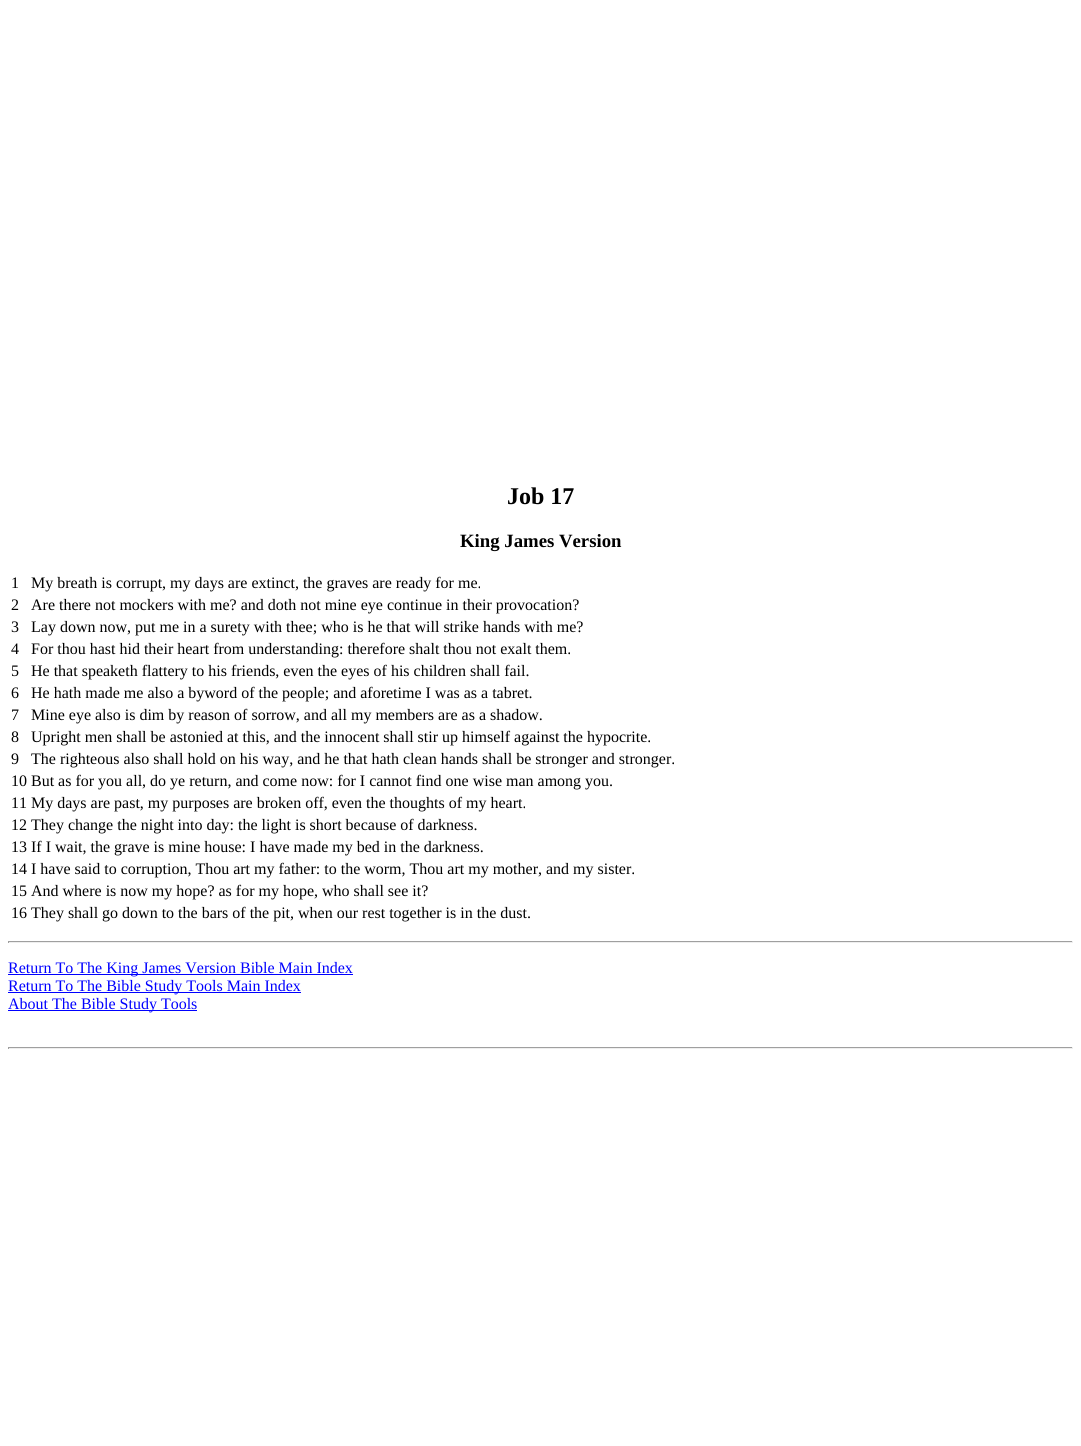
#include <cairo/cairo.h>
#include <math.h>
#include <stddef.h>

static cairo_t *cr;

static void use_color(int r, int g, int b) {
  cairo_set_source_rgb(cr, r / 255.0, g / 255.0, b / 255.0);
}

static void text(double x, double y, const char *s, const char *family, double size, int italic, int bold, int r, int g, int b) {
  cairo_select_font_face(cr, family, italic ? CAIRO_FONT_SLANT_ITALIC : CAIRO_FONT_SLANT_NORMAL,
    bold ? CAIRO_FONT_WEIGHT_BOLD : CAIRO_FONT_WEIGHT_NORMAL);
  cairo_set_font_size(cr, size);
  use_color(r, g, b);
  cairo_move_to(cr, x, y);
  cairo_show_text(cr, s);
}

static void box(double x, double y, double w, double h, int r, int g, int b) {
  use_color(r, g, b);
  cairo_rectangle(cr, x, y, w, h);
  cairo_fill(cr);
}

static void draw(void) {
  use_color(255, 255, 255);
  cairo_paint(cr);
  box(8, 941, 1065, 1, 159, 159, 159);
  box(1072, 941, 1, 2, 238, 238, 238);
  box(8, 942, 1065, 1, 238, 238, 238);
  box(8, 941, 1, 2, 159, 159, 159);
  box(8, 974, 345, 1, 0, 0, 255);
  box(8, 992, 293, 1, 0, 0, 255);
  box(8, 1010, 189, 1, 0, 0, 255);
  box(8, 1047, 1065, 1, 159, 159, 159);
  box(1072, 1047, 1, 2, 238, 238, 238);
  box(8, 1048, 1065, 1, 238, 238, 238);
  box(8, 1047, 1, 2, 159, 159, 159);
  text(507, 504, "Job 17", "Liberation Serif", 24, 0, 1, 0, 0, 0);
  text(460, 547, "King James Version", "Liberation Serif", 18.75, 0, 1, 0, 0, 0);
  text(11, 588, "1", "Liberation Serif", 16, 0, 0, 0, 0, 0);
  text(31, 588, "My breath is corrupt, my days are extinct, the graves are ready for me.", "Liberation Serif", 16, 0, 0, 0, 0, 0);
  text(11, 610, "2", "Liberation Serif", 16, 0, 0, 0, 0, 0);
  text(31, 610, "Are there not mockers with me? and doth not mine eye continue in their provocation?", "Liberation Serif", 16, 0, 0, 0, 0, 0);
  text(11, 632, "3", "Liberation Serif", 16, 0, 0, 0, 0, 0);
  text(31, 632, "Lay down now, put me in a surety with thee; who is he that will strike hands with me?", "Liberation Serif", 16, 0, 0, 0, 0, 0);
  text(11, 654, "4", "Liberation Serif", 16, 0, 0, 0, 0, 0);
  text(31, 654, "For thou hast hid their heart from understanding: therefore shalt thou not exalt them.", "Liberation Serif", 16, 0, 0, 0, 0, 0);
  text(11, 676, "5", "Liberation Serif", 16, 0, 0, 0, 0, 0);
  text(31, 676, "He that speaketh flattery to his friends, even the eyes of his children shall fail.", "Liberation Serif", 16, 0, 0, 0, 0, 0);
  text(11, 698, "6", "Liberation Serif", 16, 0, 0, 0, 0, 0);
  text(31, 698, "He hath made me also a byword of the people; and aforetime I was as a tabret.", "Liberation Serif", 16, 0, 0, 0, 0, 0);
  text(11, 720, "7", "Liberation Serif", 16, 0, 0, 0, 0, 0);
  text(31, 720, "Mine eye also is dim by reason of sorrow, and all my members are as a shadow.", "Liberation Serif", 16, 0, 0, 0, 0, 0);
  text(11, 742, "8", "Liberation Serif", 16, 0, 0, 0, 0, 0);
  text(31, 742, "Upright men shall be astonied at this, and the innocent shall stir up himself against the hypocrite.", "Liberation Serif", 16, 0, 0, 0, 0, 0);
  text(11, 764, "9", "Liberation Serif", 16, 0, 0, 0, 0, 0);
  text(31, 764, "The righteous also shall hold on his way, and he that hath clean hands shall be stronger and stronger.", "Liberation Serif", 16, 0, 0, 0, 0, 0);
  text(11, 786, "10 But as for you all, do ye return, and come now: for I cannot find one wise man among you.", "Liberation Serif", 16, 0, 0, 0, 0, 0);
  text(11, 808, "11 My days are past, my purposes are broken off, even the thoughts of my heart.", "Liberation Serif", 16, 0, 0, 0, 0, 0);
  text(11, 830, "12 They change the night into day: the light is short because of darkness.", "Liberation Serif", 16, 0, 0, 0, 0, 0);
  text(11, 852, "13 If I wait, the grave is mine house: I have made my bed in the darkness.", "Liberation Serif", 16, 0, 0, 0, 0, 0);
  text(11, 874, "14 I have said to corruption, Thou art my father: to the worm, Thou art my mother, and my sister.", "Liberation Serif", 16, 0, 0, 0, 0, 0);
  text(11, 896, "15 And where is now my hope? as for my hope, who shall see it?", "Liberation Serif", 16, 0, 0, 0, 0, 0);
  text(11, 918, "16 They shall go down to the bars of the pit, when our rest together is in the dust.", "Liberation Serif", 16, 0, 0, 0, 0, 0);
  text(8, 973, "Return To The King James Version Bible Main Index", "Liberation Serif", 16, 0, 0, 0, 0, 255);
  text(8, 991, "Return To The Bible Study Tools Main Index", "Liberation Serif", 16, 0, 0, 0, 0, 255);
  text(8, 1009, "About The Bible Study Tools", "Liberation Serif", 16, 0, 0, 0, 0, 255);
}

int main(void) {
  cairo_surface_t *surface = cairo_image_surface_create(CAIRO_FORMAT_RGB24, 1081, 1446);
  cr = cairo_create(surface);
  cairo_font_options_t *options = cairo_font_options_create();
  cairo_font_options_set_hint_metrics(options, CAIRO_HINT_METRICS_OFF);
  cairo_font_options_set_hint_style(options, CAIRO_HINT_STYLE_NONE);
  cairo_set_font_options(cr, options);
  cairo_set_miter_limit(cr, 4);
  draw();
  cairo_surface_write_to_png(surface, "out.png");
  cairo_font_options_destroy(options);
  cairo_destroy(cr);
  cairo_surface_destroy(surface);
  return 0;
}
